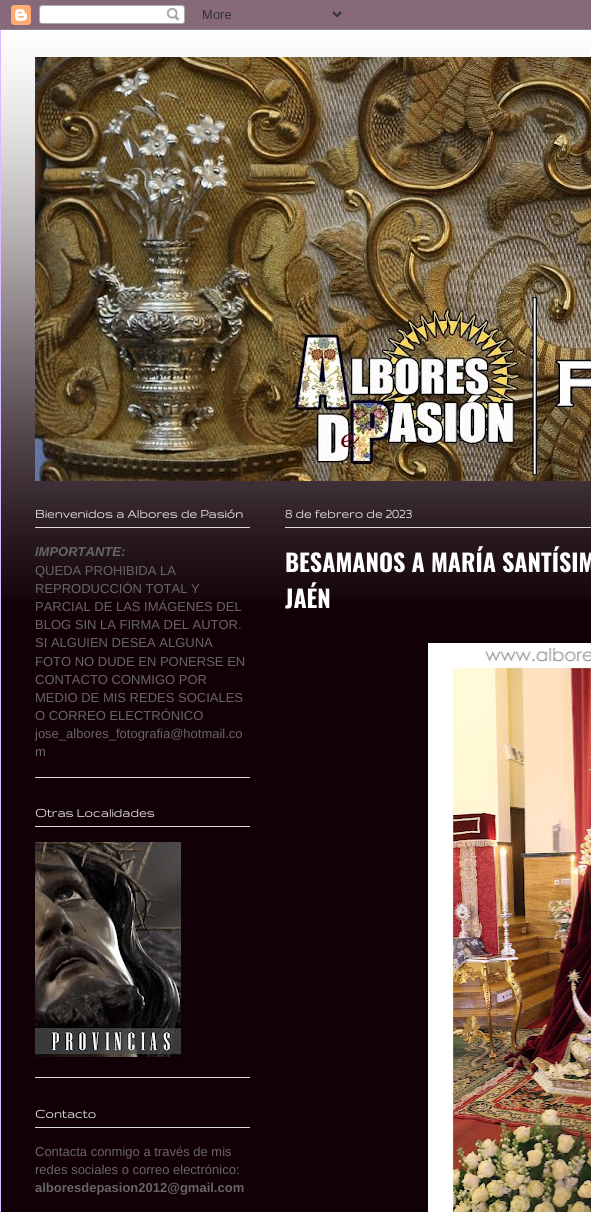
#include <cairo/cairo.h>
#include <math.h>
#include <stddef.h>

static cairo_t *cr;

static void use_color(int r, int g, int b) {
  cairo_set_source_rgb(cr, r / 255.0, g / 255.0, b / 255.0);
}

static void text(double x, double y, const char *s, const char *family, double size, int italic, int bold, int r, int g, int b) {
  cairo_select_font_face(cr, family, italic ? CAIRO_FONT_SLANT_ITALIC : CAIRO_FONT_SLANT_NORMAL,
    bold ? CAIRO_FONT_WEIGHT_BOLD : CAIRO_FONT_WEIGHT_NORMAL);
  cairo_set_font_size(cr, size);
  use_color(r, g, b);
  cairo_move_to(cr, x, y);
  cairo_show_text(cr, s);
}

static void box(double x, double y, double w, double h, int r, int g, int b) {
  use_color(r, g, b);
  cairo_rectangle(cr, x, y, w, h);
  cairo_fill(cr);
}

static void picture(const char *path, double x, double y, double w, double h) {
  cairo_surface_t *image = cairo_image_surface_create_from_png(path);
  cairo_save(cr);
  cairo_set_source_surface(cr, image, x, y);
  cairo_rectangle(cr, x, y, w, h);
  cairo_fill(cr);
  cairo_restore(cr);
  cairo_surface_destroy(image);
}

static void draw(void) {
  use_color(55, 6, 32);
  cairo_paint(cr);
  picture("img_01.png", 0, 0, 591, 30);
  box(1, 37, 590, 1175, 17, 0, 8);
  picture("img_02.png", 1, 30, 590, 569);
  box(0, 30, 1, 1182, 221, 187, 255);
  picture("img_03.png", 35, 57, 556, 424);
  box(35, 777, 215, 1, 219, 219, 219);
  box(35, 527, 215, 1, 219, 219, 219);
  box(35, 1077, 215, 1, 219, 219, 219);
  box(35, 826, 215, 1, 219, 219, 219);
  picture("img_04.png", 35, 842, 146, 215);
  box(35, 1127, 215, 1, 219, 219, 219);
  box(285, 527, 306, 1, 219, 219, 219);
  picture("img_05.png", 428, 643, 163, 569);
  text(35, 518, "Bienvenidos a Albores de Pasión", "Gruppo", 14, 0, 1, 219, 219, 219);
  text(35, 556, "IMPORTANTE:", "Liberation Sans", 13, 1, 1, 102, 102, 102);
  text(35, 575, "QUEDA PROHIBIDA LA", "Liberation Sans", 13, 0, 0, 102, 102, 102);
  text(35, 593, "REPRODUCCIÓN TOTAL Y", "Liberation Sans", 13, 0, 0, 102, 102, 102);
  text(35, 611, "PARCIAL DE LAS IMÁGENES DEL", "Liberation Sans", 13, 0, 0, 102, 102, 102);
  text(35, 629, "BLOG SIN LA FIRMA DEL AUTOR.", "Liberation Sans", 13, 0, 0, 102, 102, 102);
  text(35, 647, "SI ALGUIEN DESEA ALGUNA", "Liberation Sans", 13, 0, 0, 102, 102, 102);
  text(35, 666, "FOTO NO DUDE EN PONERSE EN", "Liberation Sans", 13, 0, 0, 102, 102, 102);
  text(35, 684, "CONTACTO CONMIGO POR", "Liberation Sans", 13, 0, 0, 102, 102, 102);
  text(35, 702, "MEDIO DE MIS REDES SOCIALES", "Liberation Sans", 13, 0, 0, 102, 102, 102);
  text(35, 720, "O CORREO ELECTRÓNICO", "Liberation Sans", 13, 0, 0, 102, 102, 102);
  text(35, 738, "jose_albores_fotografia@hotmail.co", "Liberation Sans", 13, 0, 0, 102, 102, 102);
  text(35, 756, "m", "Liberation Sans", 13, 0, 0, 102, 102, 102);
  text(35, 817, "Otras Localidades", "Gruppo", 14, 0, 1, 219, 219, 219);
  text(35, 1118, "Contacto", "Gruppo", 14, 0, 1, 219, 219, 219);
  text(35, 1156, "Contacta conmigo a través de mis", "Liberation Sans", 13, 0, 0, 102, 102, 102);
  text(35, 1174, "redes sociales o correo electrónico:", "Liberation Sans", 13, 0, 0, 102, 102, 102);
  text(35, 1192, "alboresdepasion2012@gmail.com", "Liberation Sans", 13, 0, 1, 102, 102, 102);
  text(285, 518, "8 de febrero de 2023", "Gruppo", 14, 0, 1, 219, 219, 219);
  text(285, 572, "BESAMANOS A MARÍA SANTÍSIM", "Oswald", 24, 0, 1, 255, 255, 255);
  text(285, 608, "JAÉN", "Oswald", 24, 0, 1, 255, 255, 255);
}

int main(void) {
  cairo_surface_t *surface = cairo_image_surface_create(CAIRO_FORMAT_RGB24, 591, 1212);
  cr = cairo_create(surface);
  cairo_font_options_t *options = cairo_font_options_create();
  cairo_font_options_set_hint_metrics(options, CAIRO_HINT_METRICS_OFF);
  cairo_font_options_set_hint_style(options, CAIRO_HINT_STYLE_NONE);
  cairo_set_font_options(cr, options);
  cairo_set_miter_limit(cr, 4);
  draw();
  cairo_surface_write_to_png(surface, "out.png");
  cairo_font_options_destroy(options);
  cairo_destroy(cr);
  cairo_surface_destroy(surface);
  return 0;
}
